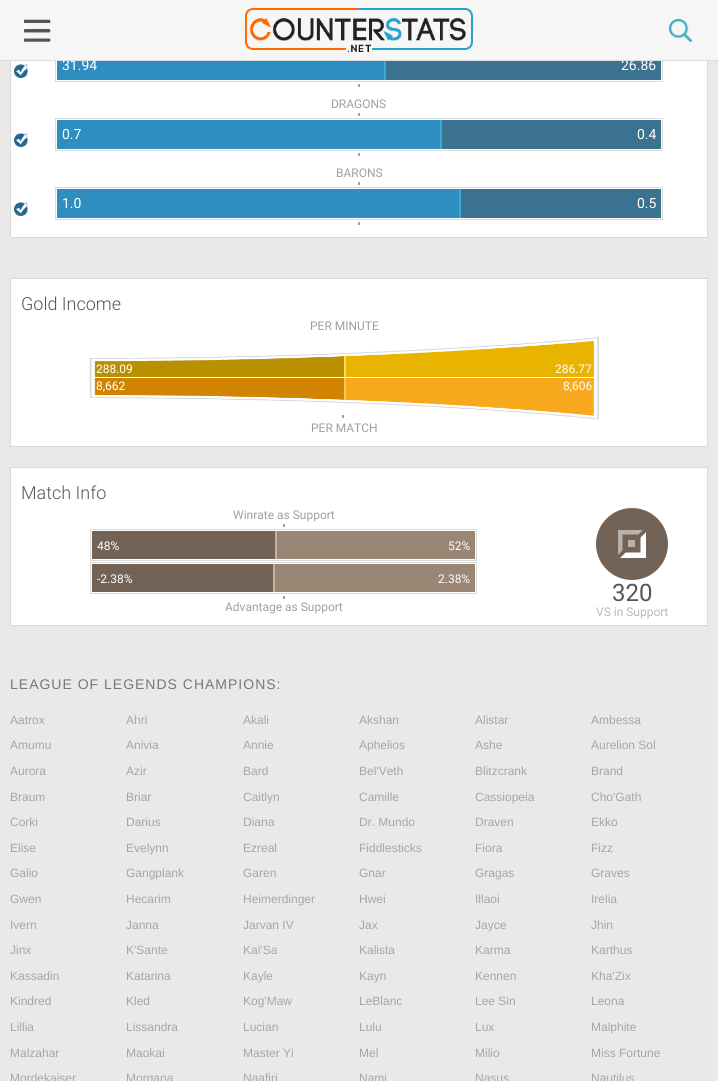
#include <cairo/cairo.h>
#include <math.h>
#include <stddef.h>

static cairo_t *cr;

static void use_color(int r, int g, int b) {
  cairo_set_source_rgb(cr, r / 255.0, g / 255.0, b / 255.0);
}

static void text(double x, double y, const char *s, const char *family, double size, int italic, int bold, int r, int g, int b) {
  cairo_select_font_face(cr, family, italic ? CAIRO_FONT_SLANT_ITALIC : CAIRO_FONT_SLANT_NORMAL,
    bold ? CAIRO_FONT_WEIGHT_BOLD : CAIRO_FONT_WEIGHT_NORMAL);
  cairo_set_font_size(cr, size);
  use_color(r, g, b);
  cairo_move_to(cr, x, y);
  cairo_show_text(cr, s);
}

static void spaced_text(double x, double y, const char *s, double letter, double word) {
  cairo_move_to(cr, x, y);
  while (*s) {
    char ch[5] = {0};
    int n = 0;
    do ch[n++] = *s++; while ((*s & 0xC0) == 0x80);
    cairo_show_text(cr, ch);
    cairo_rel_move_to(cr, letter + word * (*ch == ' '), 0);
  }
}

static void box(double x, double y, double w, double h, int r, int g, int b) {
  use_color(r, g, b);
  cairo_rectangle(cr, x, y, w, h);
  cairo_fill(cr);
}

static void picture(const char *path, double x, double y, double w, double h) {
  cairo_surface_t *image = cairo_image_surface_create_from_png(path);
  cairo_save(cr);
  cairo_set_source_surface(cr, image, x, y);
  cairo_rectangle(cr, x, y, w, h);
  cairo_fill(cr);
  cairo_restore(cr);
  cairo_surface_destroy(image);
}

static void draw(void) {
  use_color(233, 233, 233);
  cairo_paint(cr);
  box(11, 61, 696, 176, 255, 255, 255);
  cairo_rectangle(cr, 10.5, -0.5, 697, 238);
  use_color(218, 218, 218);
  cairo_set_line_width(cr, 1);
  cairo_stroke(cr);
  picture("img_04.png", 14, 64, 14, 14);
  box(57, 61, 327, 19, 46, 142, 192);
  box(384, 61, 2, 19, 57, 167, 222);
  box(386, 61, 275, 19, 59, 114, 143);
  cairo_rectangle(cr, 55.5, 49.5, 607, 32);
  use_color(217, 217, 217);
  cairo_stroke(cr);
  box(358, 84, 2, 3, 161, 161, 161);
  picture("img_04.png", 14, 133, 14, 14);
  box(358, 113, 2, 3, 161, 161, 161);
  box(57, 120, 383, 29, 46, 142, 192);
  box(440, 120, 2, 29, 57, 167, 222);
  box(442, 120, 219, 29, 59, 114, 143);
  cairo_rectangle(cr, 55.5, 118.5, 607, 32);
  use_color(217, 217, 217);
  cairo_stroke(cr);
  box(358, 153, 2, 3, 161, 161, 161);
  picture("img_04.png", 14, 202, 14, 14);
  box(358, 182, 2, 3, 161, 161, 161);
  box(57, 189, 402, 29, 46, 142, 192);
  box(459, 189, 2, 29, 57, 167, 222);
  box(461, 189, 200, 29, 59, 114, 143);
  cairo_rectangle(cr, 55.5, 187.5, 607, 32);
  use_color(217, 217, 217);
  cairo_stroke(cr);
  box(358, 222, 2, 3, 161, 161, 161);
  use_color(255, 255, 255);
  cairo_rectangle(cr, 10.5, 278.5, 697, 168);
  cairo_fill_preserve(cr);
  use_color(218, 218, 218);
  cairo_stroke(cr);
  box(94, 356, 250, 21, 185, 144, 2);
  box(344, 356, 2, 21, 255, 217, 83);
  box(346, 340, 249, 37, 232, 180, 0);
  box(94, 378, 250, 22, 208, 132, 1);
  box(344, 378, 2, 22, 255, 194, 88);
  box(346, 378, 249, 38, 248, 168, 29);
  use_color(255, 255, 255);
  cairo_rectangle(cr, 10.5, 467.5, 697, 158);
  cairo_fill_preserve(cr);
  use_color(218, 218, 218);
  cairo_stroke(cr);
  box(283, 524, 2, 3, 161, 161, 161);
  box(92, 531, 183, 28, 115, 99, 87);
  box(275, 531, 2, 28, 199, 178, 153);
  box(277, 531, 198, 28, 153, 134, 117);
  cairo_rectangle(cr, 90.5, 529.5, 386, 31);
  use_color(219, 219, 219);
  cairo_stroke(cr);
  box(92, 564, 181, 28, 115, 99, 87);
  box(273, 564, 2, 28, 199, 178, 153);
  box(275, 564, 200, 28, 153, 134, 117);
  cairo_rectangle(cr, 90.5, 562.5, 386, 31);
  use_color(219, 219, 219);
  cairo_stroke(cr);
  box(283, 596, 2, 3, 161, 161, 161);
  use_color(115, 99, 87);
  cairo_arc(cr, 632, 544, 36, 0, 2 * M_PI);
  cairo_fill(cr);
  picture("img_06.png", 618, 530, 28, 28);
  text(62, 70, "31.94", "Roboto", 14, 0, 0, 255, 255, 255);
  text(621, 70, "26.86", "Roboto", 14, 0, 0, 255, 255, 255);
  box(0, 0, 718, 60, 246, 246, 246);
  picture("img_03.png", 669, 18, 24, 25);
  picture("img_02.png", 245, 8, 228, 44);
  picture("img_01.png", 24, 19, 27, 23);
  box(0, 60, 718, 1, 221, 221, 221);
  text(331, 108, "DRAGONS", "Roboto", 12, 0, 0, 159, 159, 159);
  text(62, 139, "0.7", "Roboto", 14, 0, 0, 255, 255, 255);
  text(637, 139, "0.4", "Roboto", 14, 0, 0, 255, 255, 255);
  text(336, 177, "BARONS", "Roboto", 12, 0, 0, 159, 159, 159);
  text(62, 208, "1.0", "Roboto", 14, 0, 0, 255, 255, 255);
  text(637, 208, "0.5", "Roboto", 14, 0, 0, 255, 255, 255);
  text(21, 310, "Gold Income", "Roboto Light", 18, 0, 0, 85, 85, 85);
  text(310, 330, "PER MINUTE", "Roboto", 12, 0, 0, 159, 159, 159);
  text(96, 373, "288.09", "Roboto", 12, 0, 0, 255, 255, 255);
  text(555, 373, "286.77", "Roboto", 12, 0, 0, 255, 255, 255);
  text(96, 390, "8,662", "Roboto", 12, 0, 0, 255, 255, 255);
  text(563, 390, "8,606", "Roboto", 12, 0, 0, 255, 255, 255);
  picture("img_05.png", 86, 334, 516, 87);
  box(342, 415, 2, 3, 161, 161, 161);
  text(311, 432, "PER MATCH", "Roboto", 12, 0, 0, 159, 159, 159);
  text(21, 499, "Match Info", "Roboto Light", 18, 0, 0, 85, 85, 85);
  text(233, 519, "Winrate as Support", "Roboto", 12, 0, 0, 159, 159, 159);
  text(97, 550, "48%", "Roboto", 12, 0, 0, 255, 255, 255);
  text(448, 550, "52%", "Roboto", 12, 0, 0, 255, 255, 255);
  text(97, 583, "-2.38%", "Roboto", 12, 0, 0, 255, 255, 255);
  text(438, 583, "2.38%", "Roboto", 12, 0, 0, 255, 255, 255);
  text(225, 611, "Advantage as Support", "Roboto", 12, 0, 0, 159, 159, 159);
  text(612, 601, "320", "Roboto", 24, 0, 0, 85, 85, 85);
  text(596, 616, "VS in Support", "Roboto", 12, 0, 0, 185, 185, 185);
  cairo_select_font_face(cr, "Liberation Sans", CAIRO_FONT_SLANT_NORMAL, CAIRO_FONT_WEIGHT_NORMAL);
  cairo_set_font_size(cr, 14);
  use_color(120, 120, 120);
  spaced_text(10, 689, "LEAGUE OF LEGENDS CHAMPIONS:", 1, 0);
  text(10, 724, "Aatrox", "Liberation Sans", 12, 0, 0, 166, 166, 166);
  text(126, 724, "Ahri", "Liberation Sans", 12, 0, 0, 166, 166, 166);
  text(243, 724, "Akali", "Liberation Sans", 12, 0, 0, 166, 166, 166);
  text(359, 724, "Akshan", "Liberation Sans", 12, 0, 0, 166, 166, 166);
  text(475, 724, "Alistar", "Liberation Sans", 12, 0, 0, 166, 166, 166);
  text(591, 724, "Ambessa", "Liberation Sans", 12, 0, 0, 166, 166, 166);
  text(10, 749, "Amumu", "Liberation Sans", 12, 0, 0, 166, 166, 166);
  text(126, 749, "Anivia", "Liberation Sans", 12, 0, 0, 166, 166, 166);
  text(243, 749, "Annie", "Liberation Sans", 12, 0, 0, 166, 166, 166);
  text(359, 749, "Aphelios", "Liberation Sans", 12, 0, 0, 166, 166, 166);
  text(475, 749, "Ashe", "Liberation Sans", 12, 0, 0, 166, 166, 166);
  text(591, 749, "Aurelion Sol", "Liberation Sans", 12, 0, 0, 166, 166, 166);
  text(10, 775, "Aurora", "Liberation Sans", 12, 0, 0, 166, 166, 166);
  text(126, 775, "Azir", "Liberation Sans", 12, 0, 0, 166, 166, 166);
  text(243, 775, "Bard", "Liberation Sans", 12, 0, 0, 166, 166, 166);
  text(359, 775, "Bel'Veth", "Liberation Sans", 12, 0, 0, 166, 166, 166);
  text(475, 775, "Blitzcrank", "Liberation Sans", 12, 0, 0, 166, 166, 166);
  text(591, 775, "Brand", "Liberation Sans", 12, 0, 0, 166, 166, 166);
  text(10, 801, "Braum", "Liberation Sans", 12, 0, 0, 166, 166, 166);
  text(126, 801, "Briar", "Liberation Sans", 12, 0, 0, 166, 166, 166);
  text(243, 801, "Caitlyn", "Liberation Sans", 12, 0, 0, 166, 166, 166);
  text(359, 801, "Camille", "Liberation Sans", 12, 0, 0, 166, 166, 166);
  text(475, 801, "Cassiopeia", "Liberation Sans", 12, 0, 0, 166, 166, 166);
  text(591, 801, "Cho'Gath", "Liberation Sans", 12, 0, 0, 166, 166, 166);
  text(10, 826, "Corki", "Liberation Sans", 12, 0, 0, 166, 166, 166);
  text(126, 826, "Darius", "Liberation Sans", 12, 0, 0, 166, 166, 166);
  text(243, 826, "Diana", "Liberation Sans", 12, 0, 0, 166, 166, 166);
  text(359, 826, "Dr. Mundo", "Liberation Sans", 12, 0, 0, 166, 166, 166);
  text(475, 826, "Draven", "Liberation Sans", 12, 0, 0, 166, 166, 166);
  text(591, 826, "Ekko", "Liberation Sans", 12, 0, 0, 166, 166, 166);
  text(10, 852, "Elise", "Liberation Sans", 12, 0, 0, 166, 166, 166);
  text(126, 852, "Evelynn", "Liberation Sans", 12, 0, 0, 166, 166, 166);
  text(243, 852, "Ezreal", "Liberation Sans", 12, 0, 0, 166, 166, 166);
  text(359, 852, "Fiddlesticks", "Liberation Sans", 12, 0, 0, 166, 166, 166);
  text(475, 852, "Fiora", "Liberation Sans", 12, 0, 0, 166, 166, 166);
  text(591, 852, "Fizz", "Liberation Sans", 12, 0, 0, 166, 166, 166);
  text(10, 877, "Galio", "Liberation Sans", 12, 0, 0, 166, 166, 166);
  text(126, 877, "Gangplank", "Liberation Sans", 12, 0, 0, 166, 166, 166);
  text(243, 877, "Garen", "Liberation Sans", 12, 0, 0, 166, 166, 166);
  text(359, 877, "Gnar", "Liberation Sans", 12, 0, 0, 166, 166, 166);
  text(475, 877, "Gragas", "Liberation Sans", 12, 0, 0, 166, 166, 166);
  text(591, 877, "Graves", "Liberation Sans", 12, 0, 0, 166, 166, 166);
  text(10, 903, "Gwen", "Liberation Sans", 12, 0, 0, 166, 166, 166);
  text(126, 903, "Hecarim", "Liberation Sans", 12, 0, 0, 166, 166, 166);
  text(243, 903, "Heimerdinger", "Liberation Sans", 12, 0, 0, 166, 166, 166);
  text(359, 903, "Hwei", "Liberation Sans", 12, 0, 0, 166, 166, 166);
  text(475, 903, "Illaoi", "Liberation Sans", 12, 0, 0, 166, 166, 166);
  text(591, 903, "Irelia", "Liberation Sans", 12, 0, 0, 166, 166, 166);
  text(10, 929, "Ivern", "Liberation Sans", 12, 0, 0, 166, 166, 166);
  text(126, 929, "Janna", "Liberation Sans", 12, 0, 0, 166, 166, 166);
  text(243, 929, "Jarvan IV", "Liberation Sans", 12, 0, 0, 166, 166, 166);
  text(359, 929, "Jax", "Liberation Sans", 12, 0, 0, 166, 166, 166);
  text(475, 929, "Jayce", "Liberation Sans", 12, 0, 0, 166, 166, 166);
  text(591, 929, "Jhin", "Liberation Sans", 12, 0, 0, 166, 166, 166);
  text(10, 954, "Jinx", "Liberation Sans", 12, 0, 0, 166, 166, 166);
  text(126, 954, "K'Sante", "Liberation Sans", 12, 0, 0, 166, 166, 166);
  text(243, 954, "Kai'Sa", "Liberation Sans", 12, 0, 0, 166, 166, 166);
  text(359, 954, "Kalista", "Liberation Sans", 12, 0, 0, 166, 166, 166);
  text(475, 954, "Karma", "Liberation Sans", 12, 0, 0, 166, 166, 166);
  text(591, 954, "Karthus", "Liberation Sans", 12, 0, 0, 166, 166, 166);
  text(10, 980, "Kassadin", "Liberation Sans", 12, 0, 0, 166, 166, 166);
  text(126, 980, "Katarina", "Liberation Sans", 12, 0, 0, 166, 166, 166);
  text(243, 980, "Kayle", "Liberation Sans", 12, 0, 0, 166, 166, 166);
  text(359, 980, "Kayn", "Liberation Sans", 12, 0, 0, 166, 166, 166);
  text(475, 980, "Kennen", "Liberation Sans", 12, 0, 0, 166, 166, 166);
  text(591, 980, "Kha'Zix", "Liberation Sans", 12, 0, 0, 166, 166, 166);
  text(10, 1005, "Kindred", "Liberation Sans", 12, 0, 0, 166, 166, 166);
  text(126, 1005, "Kled", "Liberation Sans", 12, 0, 0, 166, 166, 166);
  text(243, 1005, "Kog'Maw", "Liberation Sans", 12, 0, 0, 166, 166, 166);
  text(359, 1005, "LeBlanc", "Liberation Sans", 12, 0, 0, 166, 166, 166);
  text(475, 1005, "Lee Sin", "Liberation Sans", 12, 0, 0, 166, 166, 166);
  text(591, 1005, "Leona", "Liberation Sans", 12, 0, 0, 166, 166, 166);
  text(10, 1031, "Lillia", "Liberation Sans", 12, 0, 0, 166, 166, 166);
  text(126, 1031, "Lissandra", "Liberation Sans", 12, 0, 0, 166, 166, 166);
  text(243, 1031, "Lucian", "Liberation Sans", 12, 0, 0, 166, 166, 166);
  text(359, 1031, "Lulu", "Liberation Sans", 12, 0, 0, 166, 166, 166);
  text(475, 1031, "Lux", "Liberation Sans", 12, 0, 0, 166, 166, 166);
  text(591, 1031, "Malphite", "Liberation Sans", 12, 0, 0, 166, 166, 166);
  text(10, 1057, "Malzahar", "Liberation Sans", 12, 0, 0, 166, 166, 166);
  text(126, 1057, "Maokai", "Liberation Sans", 12, 0, 0, 166, 166, 166);
  text(243, 1057, "Master Yi", "Liberation Sans", 12, 0, 0, 166, 166, 166);
  text(359, 1057, "Mel", "Liberation Sans", 12, 0, 0, 166, 166, 166);
  text(475, 1057, "Milio", "Liberation Sans", 12, 0, 0, 166, 166, 166);
  text(591, 1057, "Miss Fortune", "Liberation Sans", 12, 0, 0, 166, 166, 166);
  text(10, 1082, "Mordekaiser", "Liberation Sans", 12, 0, 0, 166, 166, 166);
  text(126, 1082, "Morgana", "Liberation Sans", 12, 0, 0, 166, 166, 166);
  text(243, 1082, "Naafiri", "Liberation Sans", 12, 0, 0, 166, 166, 166);
  text(359, 1082, "Nami", "Liberation Sans", 12, 0, 0, 166, 166, 166);
  text(475, 1082, "Nasus", "Liberation Sans", 12, 0, 0, 166, 166, 166);
  text(591, 1082, "Nautilus", "Liberation Sans", 12, 0, 0, 166, 166, 166);
}

int main(void) {
  cairo_surface_t *surface = cairo_image_surface_create(CAIRO_FORMAT_RGB24, 718, 1081);
  cr = cairo_create(surface);
  cairo_font_options_t *options = cairo_font_options_create();
  cairo_font_options_set_hint_metrics(options, CAIRO_HINT_METRICS_OFF);
  cairo_font_options_set_hint_style(options, CAIRO_HINT_STYLE_NONE);
  cairo_set_font_options(cr, options);
  cairo_set_miter_limit(cr, 4);
  draw();
  cairo_surface_write_to_png(surface, "out.png");
  cairo_font_options_destroy(options);
  cairo_destroy(cr);
  cairo_surface_destroy(surface);
  return 0;
}
